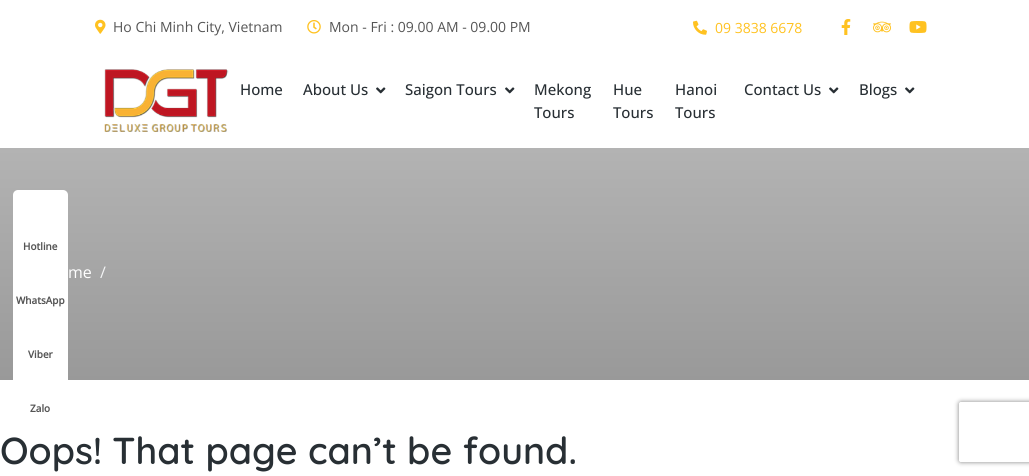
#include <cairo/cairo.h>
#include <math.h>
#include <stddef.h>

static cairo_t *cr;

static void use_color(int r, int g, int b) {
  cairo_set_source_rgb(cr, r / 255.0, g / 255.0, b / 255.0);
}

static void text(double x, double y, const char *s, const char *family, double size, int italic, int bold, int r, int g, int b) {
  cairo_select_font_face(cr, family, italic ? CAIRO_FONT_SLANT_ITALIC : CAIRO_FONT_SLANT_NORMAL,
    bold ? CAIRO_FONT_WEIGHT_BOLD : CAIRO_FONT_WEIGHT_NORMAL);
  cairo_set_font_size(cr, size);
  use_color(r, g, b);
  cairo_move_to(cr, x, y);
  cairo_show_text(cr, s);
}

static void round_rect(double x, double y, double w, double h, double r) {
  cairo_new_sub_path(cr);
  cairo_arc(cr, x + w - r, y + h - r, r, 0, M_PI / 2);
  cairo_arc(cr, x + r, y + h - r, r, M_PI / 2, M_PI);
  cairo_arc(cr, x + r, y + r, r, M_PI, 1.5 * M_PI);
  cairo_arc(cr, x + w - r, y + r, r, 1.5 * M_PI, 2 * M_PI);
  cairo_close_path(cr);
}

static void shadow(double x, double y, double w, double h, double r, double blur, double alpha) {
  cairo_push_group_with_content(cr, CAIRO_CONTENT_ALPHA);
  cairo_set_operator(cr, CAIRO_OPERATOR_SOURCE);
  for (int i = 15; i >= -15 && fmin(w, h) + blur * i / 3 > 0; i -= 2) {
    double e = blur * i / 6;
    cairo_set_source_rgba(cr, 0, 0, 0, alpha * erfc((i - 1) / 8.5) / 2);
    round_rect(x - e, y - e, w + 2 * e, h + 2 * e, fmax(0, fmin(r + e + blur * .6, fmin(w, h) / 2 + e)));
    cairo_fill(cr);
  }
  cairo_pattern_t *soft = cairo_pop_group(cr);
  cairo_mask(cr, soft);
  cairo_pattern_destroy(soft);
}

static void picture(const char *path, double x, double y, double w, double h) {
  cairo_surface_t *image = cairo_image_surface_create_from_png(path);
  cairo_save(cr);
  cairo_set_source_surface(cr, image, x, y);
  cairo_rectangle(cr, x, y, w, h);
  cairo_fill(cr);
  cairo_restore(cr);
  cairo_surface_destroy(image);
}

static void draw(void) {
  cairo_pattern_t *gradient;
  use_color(255, 255, 255);
  cairo_paint(cr);
  picture("img_01.png", 95, 19, 11, 15);
  picture("img_02.png", 307, 20, 14, 14);
  picture("img_03.png", 693, 20, 14, 15);
  picture("img_04.png", 841, 19, 10, 16);
  picture("img_05.png", 873, 21, 18, 12);
  picture("img_06.png", 909, 21, 18, 12);
  picture("img_07.png", 104, 69, 125, 63);
  picture("img_08.png", 376, 87, 10, 7);
  picture("img_08.png", 505, 87, 10, 7);
  picture("img_08.png", 829, 87, 10, 7);
  picture("img_08.png", 905, 87, 10, 7);
  gradient = cairo_pattern_create_linear(515, 148, 515, 380);
  cairo_pattern_add_color_stop_rgba(gradient, 0, 0.702, 0.702, 0.702, 1);
  cairo_pattern_add_color_stop_rgba(gradient, 1, 0.6, 0.6, 0.6, 1);
  cairo_set_source(cr, gradient);
  cairo_pattern_destroy(gradient);
  cairo_rectangle(cr, 0, 148, 1029, 232);
  cairo_fill(cr);
  use_color(255, 255, 255);
  round_rect(13, 190, 55, 236, 5);
  cairo_fill(cr);
  cairo_save(cr);
  cairo_set_fill_rule(cr, CAIRO_FILL_RULE_EVEN_ODD);
  cairo_new_path(cr);
  cairo_move_to(cr, 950, 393);
  cairo_line_to(cr, 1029, 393);
  cairo_line_to(cr, 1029, 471);
  cairo_line_to(cr, 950, 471);
  cairo_close_path(cr);
  cairo_move_to(cr, 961, 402);
  cairo_line_to(cr, 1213, 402);
  cairo_curve_to(cr, 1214, 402, 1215, 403, 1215, 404);
  cairo_line_to(cr, 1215, 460);
  cairo_curve_to(cr, 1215, 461, 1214, 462, 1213, 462);
  cairo_line_to(cr, 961, 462);
  cairo_curve_to(cr, 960, 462, 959, 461, 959, 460);
  cairo_line_to(cr, 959, 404);
  cairo_curve_to(cr, 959, 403, 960, 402, 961, 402);
  cairo_close_path(cr);
  cairo_clip(cr);
  use_color(128, 128, 128);
  shadow(959, 402, 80, 60, 2, 2.5, 1);
  cairo_restore(cr);
  text(113, 32, "Ho Chi Minh City, Vietnam", "Open Sans", 14, 0, 0, 85, 85, 85);
  text(329, 32, "Mon - Fri : 09.00 AM - 09.00 PM", "Open Sans", 14, 0, 0, 85, 85, 85);
  text(715, 33, "09 3838 6678", "Open Sans", 14, 0, 0, 255, 194, 33);
  text(240, 95, "Home", "Open Sans Medium", 15, 0, 0, 40, 47, 52);
  text(303, 95, "About Us", "Open Sans Medium", 15, 0, 0, 40, 47, 52);
  text(405, 95, "Saigon Tours", "Open Sans Medium", 15, 0, 0, 40, 47, 52);
  text(534, 95, "Mekong", "Open Sans Medium", 15, 0, 0, 40, 47, 52);
  text(534, 118, "Tours", "Open Sans Medium", 15, 0, 0, 40, 47, 52);
  text(613, 95, "Hue", "Open Sans Medium", 15, 0, 0, 40, 47, 52);
  text(613, 118, "Tours", "Open Sans Medium", 15, 0, 0, 40, 47, 52);
  text(675, 95, "Hanoi", "Open Sans Medium", 15, 0, 0, 40, 47, 52);
  text(675, 118, "Tours", "Open Sans Medium", 15, 0, 0, 40, 47, 52);
  text(744, 95, "Contact Us", "Open Sans Medium", 15, 0, 0, 40, 47, 52);
  text(859, 95, "Blogs", "Open Sans Medium", 15, 0, 0, 40, 47, 52);
  text(23, 250, "Hotline", "Open Sans", 10, 0, 1, 85, 85, 85);
  text(16, 304, "WhatsApp", "Open Sans", 10, 0, 1, 85, 85, 85);
  text(28, 358, "Viber", "Open Sans", 10, 0, 1, 85, 85, 85);
  text(30, 412, "Zalo", "Open Sans", 10, 0, 1, 85, 85, 85);
  text(68, 278, "me", "Open Sans", 16, 0, 0, 255, 255, 255);
  text(100, 278, "/", "Open Sans", 16, 0, 0, 243, 244, 245);
  text(0, 464, "Oops! That page can’t be found.", "Quicksand SemiBold", 37.5, 0, 0, 40, 47, 52);
}

int main(void) {
  cairo_surface_t *surface = cairo_image_surface_create(CAIRO_FORMAT_RGB24, 1029, 476);
  cr = cairo_create(surface);
  cairo_font_options_t *options = cairo_font_options_create();
  cairo_font_options_set_hint_metrics(options, CAIRO_HINT_METRICS_OFF);
  cairo_font_options_set_hint_style(options, CAIRO_HINT_STYLE_NONE);
  cairo_set_font_options(cr, options);
  cairo_set_miter_limit(cr, 4);
  draw();
  cairo_surface_write_to_png(surface, "out.png");
  cairo_font_options_destroy(options);
  cairo_destroy(cr);
  cairo_surface_destroy(surface);
  return 0;
}
